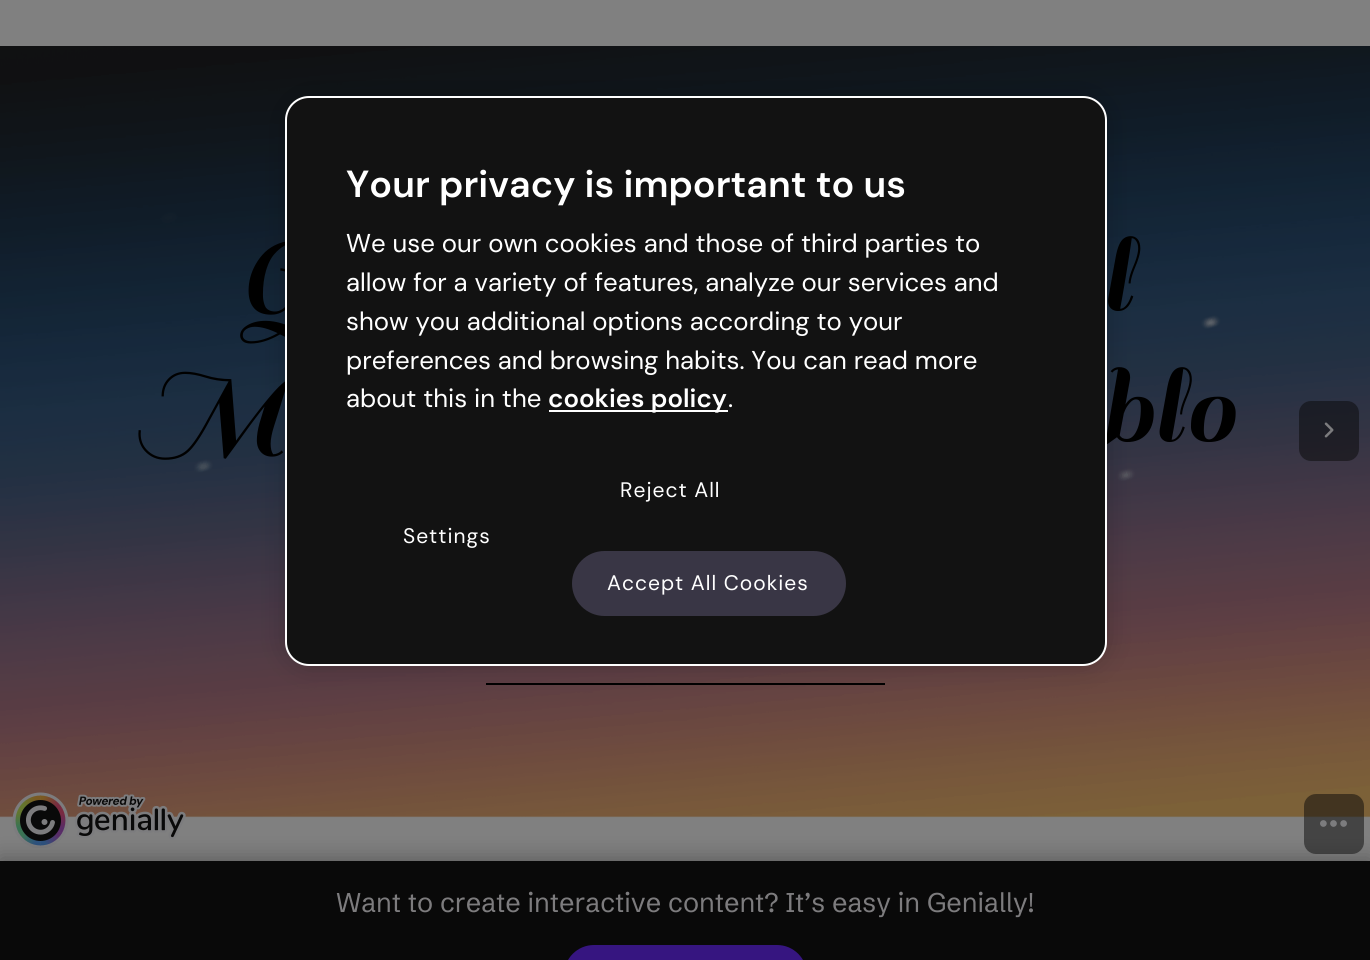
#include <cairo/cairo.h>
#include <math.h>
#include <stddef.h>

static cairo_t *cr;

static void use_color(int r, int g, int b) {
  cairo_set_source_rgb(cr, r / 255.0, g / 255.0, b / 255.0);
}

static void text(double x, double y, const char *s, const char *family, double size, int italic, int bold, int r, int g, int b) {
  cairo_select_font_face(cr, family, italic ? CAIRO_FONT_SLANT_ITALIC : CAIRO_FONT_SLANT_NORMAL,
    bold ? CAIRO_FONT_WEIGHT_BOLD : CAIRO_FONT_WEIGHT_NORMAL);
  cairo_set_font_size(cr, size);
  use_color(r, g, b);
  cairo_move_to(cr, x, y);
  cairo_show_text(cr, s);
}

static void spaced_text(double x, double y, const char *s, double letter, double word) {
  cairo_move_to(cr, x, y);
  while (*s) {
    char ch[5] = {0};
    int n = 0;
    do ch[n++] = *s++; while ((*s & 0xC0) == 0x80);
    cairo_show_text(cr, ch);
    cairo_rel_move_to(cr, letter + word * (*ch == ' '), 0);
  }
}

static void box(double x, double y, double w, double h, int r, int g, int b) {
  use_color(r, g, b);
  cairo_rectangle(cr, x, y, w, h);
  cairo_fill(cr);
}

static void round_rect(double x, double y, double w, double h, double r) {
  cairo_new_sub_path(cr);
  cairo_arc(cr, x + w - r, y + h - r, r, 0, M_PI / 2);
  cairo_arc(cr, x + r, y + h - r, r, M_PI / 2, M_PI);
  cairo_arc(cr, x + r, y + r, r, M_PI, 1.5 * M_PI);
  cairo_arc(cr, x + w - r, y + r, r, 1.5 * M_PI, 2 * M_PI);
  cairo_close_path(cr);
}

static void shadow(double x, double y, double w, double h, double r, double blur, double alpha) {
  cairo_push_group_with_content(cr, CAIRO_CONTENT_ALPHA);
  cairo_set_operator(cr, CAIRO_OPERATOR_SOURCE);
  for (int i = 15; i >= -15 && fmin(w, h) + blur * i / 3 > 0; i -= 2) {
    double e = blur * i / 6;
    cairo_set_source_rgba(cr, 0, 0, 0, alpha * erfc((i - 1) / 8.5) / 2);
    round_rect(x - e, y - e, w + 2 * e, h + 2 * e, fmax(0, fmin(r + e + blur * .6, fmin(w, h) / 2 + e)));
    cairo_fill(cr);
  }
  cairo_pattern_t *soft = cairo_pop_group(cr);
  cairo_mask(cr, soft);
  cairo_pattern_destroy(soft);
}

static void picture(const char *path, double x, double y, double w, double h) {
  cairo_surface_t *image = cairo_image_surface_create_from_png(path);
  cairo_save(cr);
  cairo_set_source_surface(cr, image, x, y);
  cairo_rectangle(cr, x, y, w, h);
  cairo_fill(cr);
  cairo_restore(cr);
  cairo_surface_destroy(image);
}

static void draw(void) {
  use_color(128, 128, 128);
  cairo_paint(cr);
  picture("img_01.png", 0, 46, 1370, 772);
  box(486, 683, 399, 2, 0, 0, 0);
  use_color(0, 0, 0);
  shadow(285, 96, 822, 570, 24, 13.5, 0.2);
  picture("img_02.png", 12, 792, 174, 56);
  cairo_set_source_rgba(cr, 0.035, 0.035, 0.035, 0.5);
  round_rect(1299, 401, 60, 60, 12);
  cairo_fill(cr);
  picture("img_03.png", 1324, 422, 10, 16);
  round_rect(1304, 794, 60, 60, 12);
  cairo_fill(cr);
  picture("img_04.png", 1320, 820, 27, 7);
  use_color(9, 9, 9);
  shadow(0, 858, 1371, 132, 0, 10, 0.3);
  box(0, 861, 1370, 99, 9, 9, 9);
  use_color(54, 21, 128);
  round_rect(564, 945, 243, 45, 30);
  cairo_fill(cr);
  text(239, 310, "Q", "Sail", 114, 0, 0, 0, 0, 0);
  text(1101, 310, "l", "Sail", 114, 0, 0, 0, 0, 0);
  text(136, 441, "M", "Sail", 114, 0, 0, 0, 0, 0);
  text(1100, 441, "blo", "Sail", 114, 0, 0, 0, 0, 0);
  use_color(18, 18, 18);
  round_rect(286, 97, 820, 568, 23);
  cairo_fill_preserve(cr);
  use_color(255, 255, 255);
  cairo_stroke(cr);
  use_color(57, 54, 69);
  round_rect(571, 550, 276, 67, 33.5);
  cairo_fill_preserve(cr);
  use_color(18, 18, 18);
  cairo_stroke(cr);
  cairo_select_font_face(cr, "DM Sans", CAIRO_FONT_SLANT_NORMAL, CAIRO_FONT_WEIGHT_NORMAL);
  cairo_set_font_size(cr, 21);
  use_color(255, 255, 255);
  spaced_text(607, 590, "Accept All Cookies", 1, 0);
  spaced_text(620, 497, "Reject All", 1, 0);
  spaced_text(403, 543, "Settings", 1, 0);
  text(728, 407, ".", "DM Sans", 25.8, 0, 0, 255, 255, 255);
  box(549, 410, 179, 2, 255, 255, 255);
  text(548, 407, "cookies policy", "DM Sans SemiBold", 25.8, 0, 0, 255, 255, 255);
  text(346, 407, "about this in the", "DM Sans", 25.8, 0, 0, 255, 255, 255);
  text(346, 369, "preferences and browsing habits. You can read more", "DM Sans", 25.8, 0, 0, 255, 255, 255);
  text(346, 330, "show you additional options according to your", "DM Sans", 25.8, 0, 0, 255, 255, 255);
  text(346, 291, "allow for a variety of features, analyze our services and", "DM Sans", 25.8, 0, 0, 255, 255, 255);
  text(346, 252, "We use our own cookies and those of third parties to", "DM Sans", 25.8, 0, 0, 255, 255, 255);
  text(346, 197, "Your privacy is important to us", "DM Sans SemiBold", 37.75, 0, 0, 255, 255, 255);
  text(336, 912, "Want to create interactive content? It’s easy in Genially!", "Schibsted Grotesk", 27, 0, 0, 125, 124, 126);
}

int main(void) {
  cairo_surface_t *surface = cairo_image_surface_create(CAIRO_FORMAT_RGB24, 1370, 960);
  cr = cairo_create(surface);
  cairo_font_options_t *options = cairo_font_options_create();
  cairo_font_options_set_hint_metrics(options, CAIRO_HINT_METRICS_OFF);
  cairo_font_options_set_hint_style(options, CAIRO_HINT_STYLE_NONE);
  cairo_set_font_options(cr, options);
  cairo_set_miter_limit(cr, 4);
  draw();
  cairo_surface_write_to_png(surface, "out.png");
  cairo_font_options_destroy(options);
  cairo_destroy(cr);
  cairo_surface_destroy(surface);
  return 0;
}
